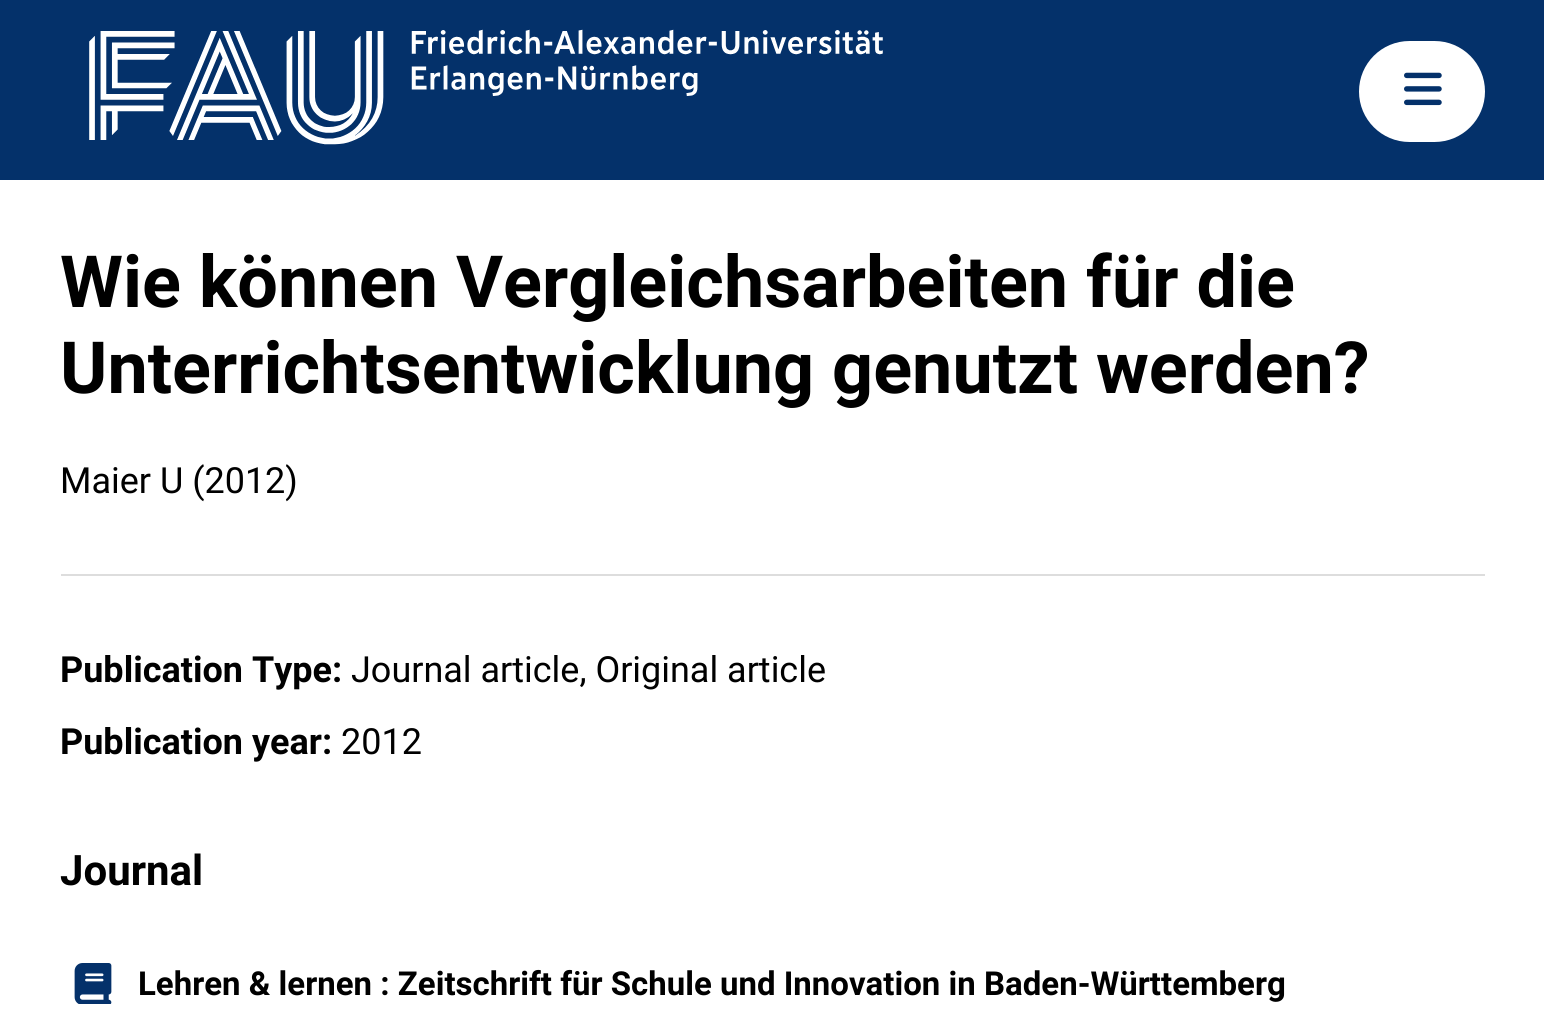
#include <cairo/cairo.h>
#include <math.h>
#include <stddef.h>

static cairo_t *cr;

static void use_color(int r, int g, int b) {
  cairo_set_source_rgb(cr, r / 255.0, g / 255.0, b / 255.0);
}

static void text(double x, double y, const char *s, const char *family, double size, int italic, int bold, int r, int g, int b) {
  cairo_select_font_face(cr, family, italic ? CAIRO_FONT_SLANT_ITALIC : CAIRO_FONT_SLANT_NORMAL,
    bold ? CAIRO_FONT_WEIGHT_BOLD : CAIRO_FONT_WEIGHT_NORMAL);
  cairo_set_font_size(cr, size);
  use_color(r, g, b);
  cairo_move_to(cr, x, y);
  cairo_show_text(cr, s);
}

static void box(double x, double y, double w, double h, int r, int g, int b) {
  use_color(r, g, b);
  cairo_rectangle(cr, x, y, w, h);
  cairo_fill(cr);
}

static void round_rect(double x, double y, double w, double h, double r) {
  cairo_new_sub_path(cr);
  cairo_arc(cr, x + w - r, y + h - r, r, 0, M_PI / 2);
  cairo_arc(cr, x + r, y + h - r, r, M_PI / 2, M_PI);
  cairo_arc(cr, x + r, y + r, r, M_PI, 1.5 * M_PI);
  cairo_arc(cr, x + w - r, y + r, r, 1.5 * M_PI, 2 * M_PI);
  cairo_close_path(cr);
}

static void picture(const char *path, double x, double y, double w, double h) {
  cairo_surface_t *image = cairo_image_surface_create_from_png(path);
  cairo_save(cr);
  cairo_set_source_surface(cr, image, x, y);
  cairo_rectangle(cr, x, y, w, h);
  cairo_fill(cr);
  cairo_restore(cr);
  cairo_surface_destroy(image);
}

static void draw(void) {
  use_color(255, 255, 255);
  cairo_paint(cr);
  box(0, 0, 1544, 180, 4, 49, 106);
  picture("img_01.png", 89, 29, 794, 116);
  use_color(255, 255, 255);
  round_rect(1359, 41, 126, 101, 50.5);
  cairo_fill(cr);
  picture("img_02.png", 1404, 72, 38, 34);
  box(61, 574, 1424, 2, 221, 221, 221);
  picture("img_03.png", 74, 963, 38, 41);
  text(60, 307, "Wie können Vergleichsarbeiten für die", "Roboto", 72, 0, 1, 0, 0, 0);
  text(60, 393, "Unterrichtsentwicklung genutzt werden?", "Roboto", 72, 0, 1, 0, 0, 0);
  text(60, 493, "Maier U (2012)", "Roboto", 36, 0, 0, 0, 0, 0);
  text(60, 682, "Publication Type:", "Roboto", 36, 0, 1, 0, 0, 0);
  text(351, 682, "Journal article, Original article", "Roboto", 36, 0, 0, 0, 0, 0);
  text(60, 754, "Publication year:", "Roboto", 36, 0, 1, 0, 0, 0);
  text(341, 754, "2012", "Roboto", 36, 0, 0, 0, 0, 0);
  text(60, 885, "Journal", "Roboto", 42, 0, 1, 0, 0, 0);
  text(138, 995, "Lehren & lernen : Zeitschrift für Schule und Innovation in Baden-Württemberg", "Roboto", 33, 0, 1, 0, 0, 0);
}

int main(void) {
  cairo_surface_t *surface = cairo_image_surface_create(CAIRO_FORMAT_RGB24, 1544, 1017);
  cr = cairo_create(surface);
  cairo_font_options_t *options = cairo_font_options_create();
  cairo_font_options_set_hint_metrics(options, CAIRO_HINT_METRICS_OFF);
  cairo_font_options_set_hint_style(options, CAIRO_HINT_STYLE_NONE);
  cairo_set_font_options(cr, options);
  cairo_set_miter_limit(cr, 4);
  draw();
  cairo_surface_write_to_png(surface, "out.png");
  cairo_font_options_destroy(options);
  cairo_destroy(cr);
  cairo_surface_destroy(surface);
  return 0;
}
